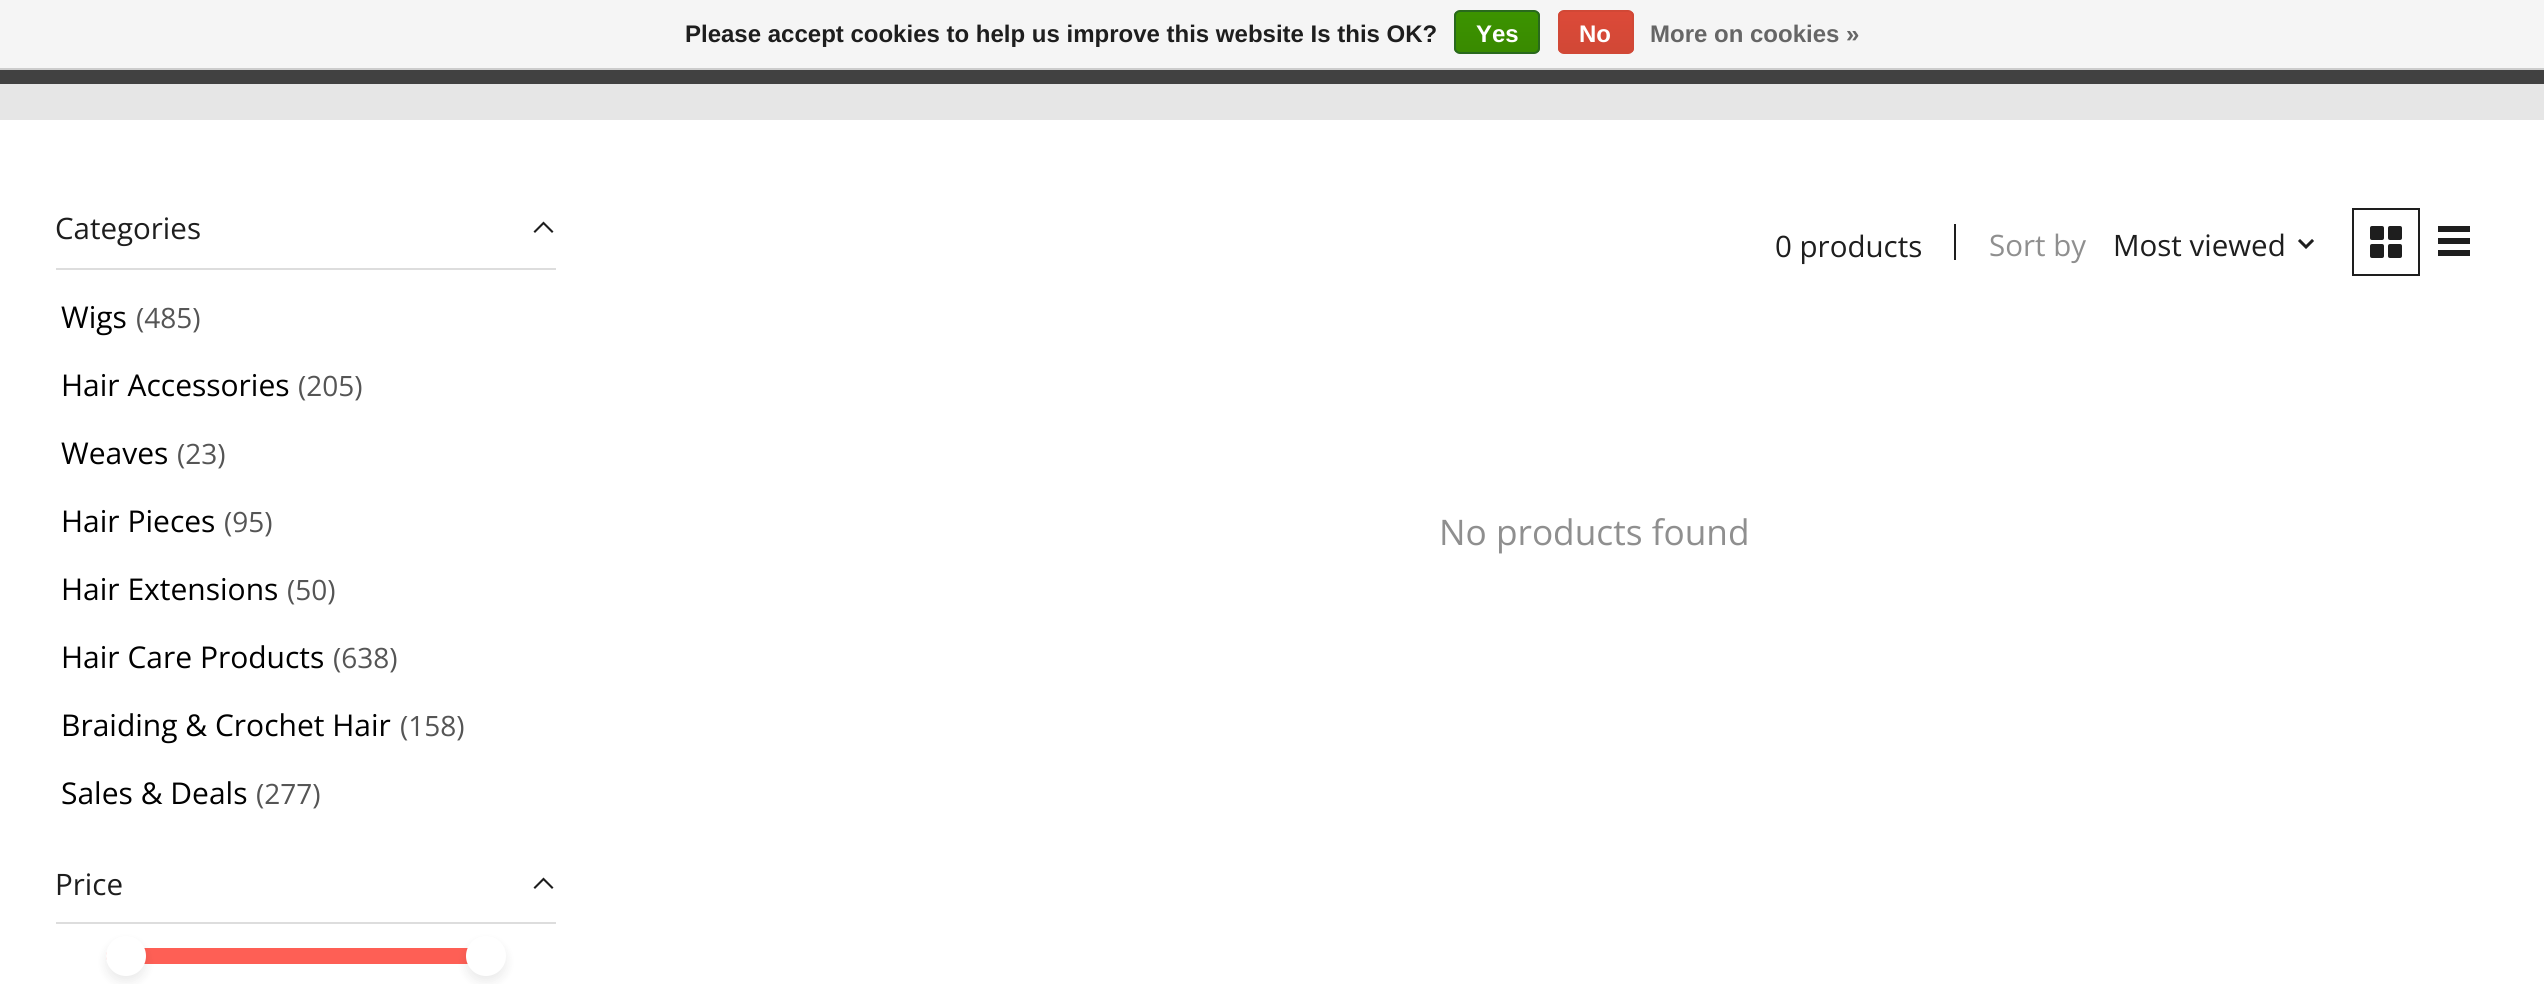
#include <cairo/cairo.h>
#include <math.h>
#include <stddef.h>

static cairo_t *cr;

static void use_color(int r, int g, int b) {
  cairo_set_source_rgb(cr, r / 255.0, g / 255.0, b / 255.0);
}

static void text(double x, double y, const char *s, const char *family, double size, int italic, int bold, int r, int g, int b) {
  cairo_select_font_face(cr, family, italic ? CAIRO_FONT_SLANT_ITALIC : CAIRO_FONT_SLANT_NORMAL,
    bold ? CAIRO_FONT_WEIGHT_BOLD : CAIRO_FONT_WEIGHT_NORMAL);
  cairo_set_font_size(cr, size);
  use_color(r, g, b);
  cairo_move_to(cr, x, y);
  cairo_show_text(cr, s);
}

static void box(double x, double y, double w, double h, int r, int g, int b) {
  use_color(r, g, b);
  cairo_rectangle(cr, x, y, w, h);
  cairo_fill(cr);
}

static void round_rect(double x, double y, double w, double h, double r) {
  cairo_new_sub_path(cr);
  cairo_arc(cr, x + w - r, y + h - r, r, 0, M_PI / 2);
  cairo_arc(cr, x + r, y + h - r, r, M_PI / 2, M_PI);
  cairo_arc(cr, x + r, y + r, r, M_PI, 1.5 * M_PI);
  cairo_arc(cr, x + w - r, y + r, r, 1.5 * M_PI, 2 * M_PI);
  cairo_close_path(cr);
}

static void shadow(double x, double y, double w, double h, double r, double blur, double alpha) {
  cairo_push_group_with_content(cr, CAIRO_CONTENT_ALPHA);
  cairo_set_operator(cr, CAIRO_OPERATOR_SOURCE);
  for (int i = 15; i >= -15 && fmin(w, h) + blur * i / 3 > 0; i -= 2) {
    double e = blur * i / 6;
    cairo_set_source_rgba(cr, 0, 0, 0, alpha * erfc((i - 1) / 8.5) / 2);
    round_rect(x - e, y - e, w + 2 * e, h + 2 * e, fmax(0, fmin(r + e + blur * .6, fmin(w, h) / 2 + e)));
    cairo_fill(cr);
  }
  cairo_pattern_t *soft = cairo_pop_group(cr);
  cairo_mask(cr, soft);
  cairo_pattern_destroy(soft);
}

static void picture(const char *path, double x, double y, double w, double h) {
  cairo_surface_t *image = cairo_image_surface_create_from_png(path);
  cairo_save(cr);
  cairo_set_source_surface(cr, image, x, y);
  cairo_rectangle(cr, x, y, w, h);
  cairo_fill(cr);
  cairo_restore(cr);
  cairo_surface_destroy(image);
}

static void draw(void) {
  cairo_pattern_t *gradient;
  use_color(255, 255, 255);
  cairo_paint(cr);
  box(0, 0, 2544, 68, 245, 245, 245);
  box(0, 68, 2544, 2, 204, 204, 204);
  cairo_save(cr);
  round_rect(1454, 10, 86, 44, 6);
  cairo_clip(cr);
  gradient = cairo_pattern_create_linear(1497, 12, 1497, 52);
  cairo_pattern_add_color_stop_rgba(gradient, 0, 0.235, 0.576, 0, 1);
  cairo_pattern_add_color_stop_rgba(gradient, 1, 0.224, 0.541, 0, 1);
  cairo_set_source(cr, gradient);
  cairo_pattern_destroy(gradient);
  cairo_rectangle(cr, 1454, 12, 86, 40);
  cairo_fill(cr);
  cairo_restore(cr);
  round_rect(1455, 11, 84, 42, 5);
  use_color(41, 105, 29);
  cairo_stroke(cr);
  cairo_save(cr);
  round_rect(1558, 10, 76, 44, 6);
  cairo_clip(cr);
  gradient = cairo_pattern_create_linear(1596, 12, 1596, 52);
  cairo_pattern_add_color_stop_rgba(gradient, 0, 0.863, 0.29, 0.22, 1);
  cairo_pattern_add_color_stop_rgba(gradient, 1, 0.82, 0.282, 0.212, 1);
  cairo_set_source(cr, gradient);
  cairo_pattern_destroy(gradient);
  cairo_rectangle(cr, 1558, 12, 76, 40);
  cairo_fill(cr);
  cairo_restore(cr);
  round_rect(1559, 11, 74, 42, 5);
  use_color(209, 72, 54);
  cairo_stroke(cr);
  box(0, 70, 2544, 14, 65, 65, 65);
  box(0, 84, 2544, 36, 230, 230, 230);
  box(56, 268, 500, 2, 221, 221, 221);
  cairo_new_path(cr);
  cairo_move_to(cr, 535, 231.5);
  cairo_line_to(cr, 543.5, 223);
  cairo_move_to(cr, 552, 231.5);
  cairo_line_to(cr, 543.5, 223);
  use_color(30, 30, 30);
  cairo_set_line_width(cr, 2.1);
  cairo_set_line_cap(cr, CAIRO_LINE_CAP_SQUARE);
  cairo_stroke(cr);
  box(56, 922, 500, 2, 221, 221, 221);
  cairo_new_path(cr);
  cairo_move_to(cr, 535, 887.5);
  cairo_line_to(cr, 543.5, 879);
  cairo_move_to(cr, 552, 887.5);
  cairo_line_to(cr, 543.5, 879);
  use_color(30, 30, 30);
  cairo_stroke(cr);
  use_color(254, 95, 85);
  cairo_new_path(cr);
  cairo_move_to(cr, 114, 948);
  cairo_line_to(cr, 486, 948);
  cairo_line_to(cr, 486, 964);
  cairo_line_to(cr, 114, 964);
  cairo_curve_to(cr, 109.5, 964, 106, 960.5, 106, 956);
  cairo_curve_to(cr, 106, 951.5, 109.5, 948, 114, 948);
  cairo_close_path(cr);
  cairo_fill(cr);
  use_color(0, 0, 0);
  shadow(106, 942, 40, 40, 20, 5.5, 0.08);
  use_color(255, 255, 255);
  cairo_arc(cr, 126, 956, 20, 0, 2 * M_PI);
  cairo_fill(cr);
  use_color(0, 0, 0);
  shadow(466, 942, 40, 40, 20, 5.5, 0.08);
  use_color(255, 255, 255);
  cairo_arc(cr, 486, 956, 20, 0, 2 * M_PI);
  cairo_fill(cr);
  box(1954, 224, 2, 36, 30, 30, 30);
  picture("img_01.png", 2298, 239, 16, 10);
  cairo_rectangle(cr, 2353, 209, 66, 66);
  cairo_set_line_width(cr, 2);
  cairo_set_line_cap(cr, CAIRO_LINE_CAP_BUTT);
  cairo_stroke(cr);
  picture("img_02.png", 2370, 226, 32, 32);
  box(2438, 226, 32, 6, 30, 30, 30);
  box(2438, 238, 32, 6, 30, 30, 30);
  box(2438, 250, 32, 6, 30, 30, 30);
  text(685, 42, "Please accept cookies to help us improve this website Is this OK?", "Liberation Sans", 24, 0, 1, 30, 30, 30);
  text(1476, 42, "Yes", "Liberation Sans", 24, 0, 1, 255, 255, 255);
  text(1579, 42, "No", "Liberation Sans", 24, 0, 1, 255, 255, 255);
  text(1650, 42, "More on cookies »", "Liberation Sans", 24, 0, 1, 102, 102, 102);
  text(55, 239, "Categories", "Open Sans", 29.5, 0, 0, 30, 30, 30);
  text(61, 328, "Wigs", "Open Sans", 30, 0, 0, 0, 0, 0);
  text(136, 328, "(485)", "Open Sans", 28, 0, 0, 85, 85, 85);
  text(61, 396, "Hair Accessories", "Open Sans", 30, 0, 0, 0, 0, 0);
  text(298, 396, "(205)", "Open Sans", 28, 0, 0, 85, 85, 85);
  text(61, 464, "Weaves", "Open Sans", 30, 0, 0, 0, 0, 0);
  text(177, 464, "(23)", "Open Sans", 28, 0, 0, 85, 85, 85);
  text(61, 532, "Hair Pieces", "Open Sans", 30, 0, 0, 0, 0, 0);
  text(224, 532, "(95)", "Open Sans", 28, 0, 0, 85, 85, 85);
  text(61, 600, "Hair Extensions", "Open Sans", 30, 0, 0, 0, 0, 0);
  text(287, 600, "(50)", "Open Sans", 28, 0, 0, 85, 85, 85);
  text(61, 668, "Hair Care Products", "Open Sans", 30, 0, 0, 0, 0, 0);
  text(333, 668, "(638)", "Open Sans", 28, 0, 0, 85, 85, 85);
  text(61, 736, "Braiding & Crochet Hair", "Open Sans", 30, 0, 0, 0, 0, 0);
  text(400, 736, "(158)", "Open Sans", 28, 0, 0, 85, 85, 85);
  text(61, 804, "Sales & Deals", "Open Sans", 30, 0, 0, 0, 0, 0);
  text(256, 804, "(277)", "Open Sans", 28, 0, 0, 85, 85, 85);
  text(55, 895, "Price", "Open Sans", 29.5, 0, 0, 30, 30, 30);
  text(1775, 257, "0 products", "Open Sans", 29.5, 0, 0, 30, 30, 30);
  text(1989, 256, "Sort by", "Open Sans", 29.5, 0, 0, 143, 143, 143);
  text(2113, 256, "Most viewed", "Open Sans", 29.5, 0, 0, 30, 30, 30);
  text(1439, 545, "No products found", "Open Sans", 35.25, 0, 0, 143, 143, 143);
}

int main(void) {
  cairo_surface_t *surface = cairo_image_surface_create(CAIRO_FORMAT_RGB24, 2544, 984);
  cr = cairo_create(surface);
  cairo_font_options_t *options = cairo_font_options_create();
  cairo_font_options_set_hint_metrics(options, CAIRO_HINT_METRICS_OFF);
  cairo_font_options_set_hint_style(options, CAIRO_HINT_STYLE_NONE);
  cairo_set_font_options(cr, options);
  cairo_set_miter_limit(cr, 4);
  draw();
  cairo_surface_write_to_png(surface, "out.png");
  cairo_font_options_destroy(options);
  cairo_destroy(cr);
  cairo_surface_destroy(surface);
  return 0;
}
